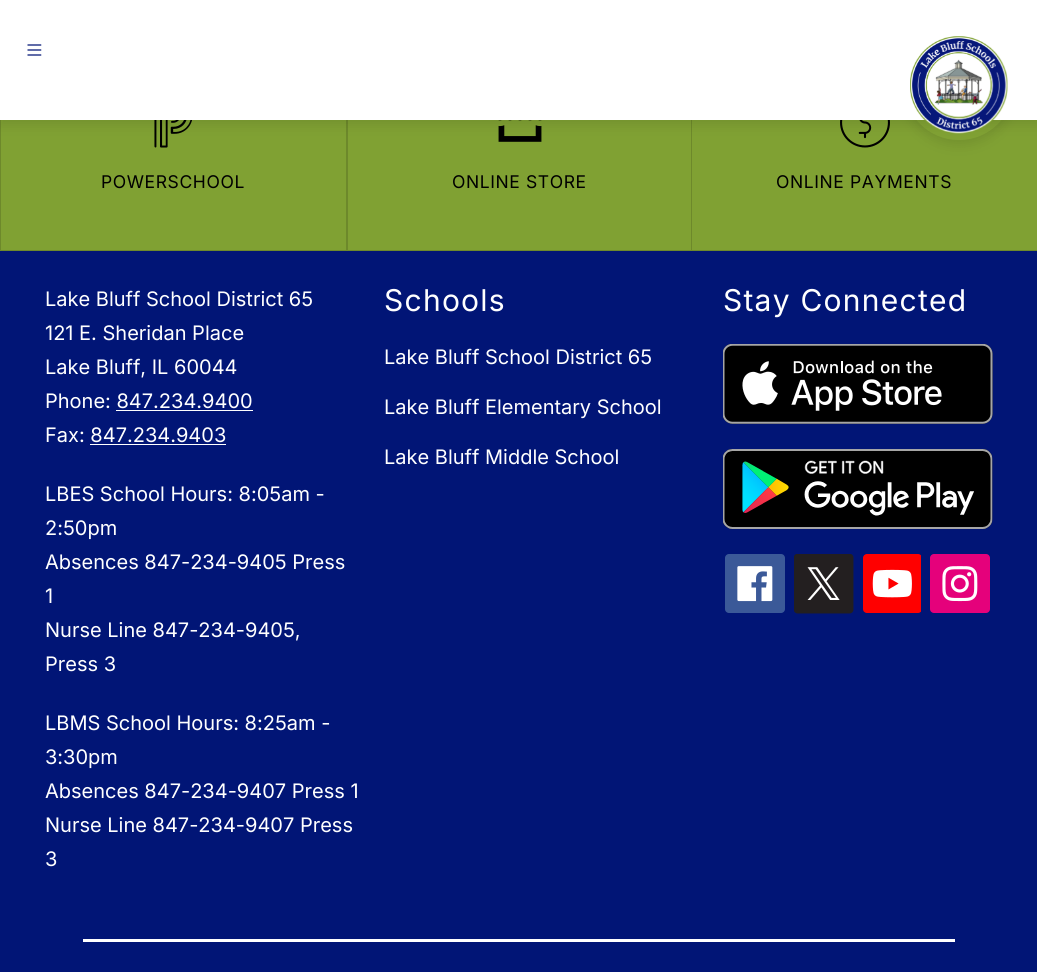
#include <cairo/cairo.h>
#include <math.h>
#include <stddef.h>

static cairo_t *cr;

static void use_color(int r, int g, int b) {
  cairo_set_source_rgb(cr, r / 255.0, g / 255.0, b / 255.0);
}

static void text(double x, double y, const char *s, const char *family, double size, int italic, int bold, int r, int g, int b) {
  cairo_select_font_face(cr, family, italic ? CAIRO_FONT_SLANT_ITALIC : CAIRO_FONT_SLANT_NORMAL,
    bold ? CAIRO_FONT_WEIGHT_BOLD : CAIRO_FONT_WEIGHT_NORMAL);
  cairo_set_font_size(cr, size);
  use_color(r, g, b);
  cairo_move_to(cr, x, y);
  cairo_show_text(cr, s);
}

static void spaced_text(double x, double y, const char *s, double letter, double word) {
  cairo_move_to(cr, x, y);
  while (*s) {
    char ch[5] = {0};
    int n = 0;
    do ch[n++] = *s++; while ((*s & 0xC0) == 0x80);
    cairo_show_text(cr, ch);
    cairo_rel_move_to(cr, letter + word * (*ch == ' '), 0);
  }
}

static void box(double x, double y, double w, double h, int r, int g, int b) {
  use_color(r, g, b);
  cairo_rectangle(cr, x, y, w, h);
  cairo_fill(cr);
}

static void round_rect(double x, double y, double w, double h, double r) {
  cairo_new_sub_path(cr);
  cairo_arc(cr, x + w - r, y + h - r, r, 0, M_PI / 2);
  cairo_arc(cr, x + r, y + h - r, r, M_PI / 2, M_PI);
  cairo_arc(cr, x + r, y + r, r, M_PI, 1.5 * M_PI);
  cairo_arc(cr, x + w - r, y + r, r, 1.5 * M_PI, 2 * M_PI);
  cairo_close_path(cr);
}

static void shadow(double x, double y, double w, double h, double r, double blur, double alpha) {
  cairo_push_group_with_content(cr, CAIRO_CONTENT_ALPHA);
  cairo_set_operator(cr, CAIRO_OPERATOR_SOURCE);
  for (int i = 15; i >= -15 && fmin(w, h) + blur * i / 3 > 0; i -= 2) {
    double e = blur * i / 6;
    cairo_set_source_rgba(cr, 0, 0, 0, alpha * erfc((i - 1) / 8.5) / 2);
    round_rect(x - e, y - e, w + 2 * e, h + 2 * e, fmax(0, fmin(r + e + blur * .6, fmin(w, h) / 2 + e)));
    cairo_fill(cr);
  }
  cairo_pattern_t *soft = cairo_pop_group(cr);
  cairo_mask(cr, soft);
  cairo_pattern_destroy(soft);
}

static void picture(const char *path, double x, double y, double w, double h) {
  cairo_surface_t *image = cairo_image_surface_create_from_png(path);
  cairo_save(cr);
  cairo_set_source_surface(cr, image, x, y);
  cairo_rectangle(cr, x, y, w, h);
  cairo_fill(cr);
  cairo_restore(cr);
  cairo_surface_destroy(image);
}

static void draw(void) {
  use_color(1, 21, 118);
  cairo_paint(cr);
  box(0, 120, 691, 131, 128, 161, 51);
  use_color(109, 137, 43);
  cairo_new_path(cr);
  cairo_move_to(cr, 346, 251);
  cairo_line_to(cr, 0, 251);
  cairo_line_to(cr, 1, 250);
  cairo_line_to(cr, 346, 250);
  cairo_close_path(cr);
  cairo_fill(cr);
  cairo_set_source_rgba(cr, 0, 0, 0, 0.15);
  cairo_new_path(cr);
  cairo_move_to(cr, 0, 251);
  cairo_line_to(cr, 0, 46);
  cairo_line_to(cr, 1, 48);
  cairo_line_to(cr, 1, 250);
  cairo_close_path(cr);
  cairo_fill(cr);
  picture("img_03.png", 154, 120, 38, 28);
  use_color(109, 137, 43);
  cairo_new_path(cr);
  cairo_move_to(cr, 691, 251);
  cairo_line_to(cr, 346, 251);
  cairo_line_to(cr, 348, 250);
  cairo_line_to(cr, 691, 250);
  cairo_close_path(cr);
  cairo_fill(cr);
  cairo_set_source_rgba(cr, 0, 0, 0, 0.15);
  cairo_new_path(cr);
  cairo_move_to(cr, 346, 251);
  cairo_line_to(cr, 346, 46);
  cairo_line_to(cr, 348, 48);
  cairo_line_to(cr, 348, 250);
  cairo_close_path(cr);
  cairo_fill(cr);
  picture("img_04.png", 498, 120, 44, 22);
  box(692, 120, 345, 130, 128, 161, 51);
  cairo_rectangle(cr, 691.5, 46.5, 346, 204);
  use_color(109, 137, 43);
  cairo_set_line_width(cr, 1);
  cairo_stroke(cr);
  picture("img_05.png", 840, 120, 50, 28);
  use_color(0, 0, 0);
  shadow(0, 5, 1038, 120, 0, 6, 0.1);
  cairo_save(cr);
  cairo_set_fill_rule(cr, CAIRO_FILL_RULE_EVEN_ODD);
  cairo_new_path(cr);
  cairo_move_to(cr, 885, 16);
  cairo_line_to(cr, 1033, 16);
  cairo_line_to(cr, 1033, 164);
  cairo_line_to(cr, 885, 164);
  cairo_close_path(cr);
  cairo_move_to(cr, 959, 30);
  cairo_curve_to(cr, 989.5, 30, 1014, 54.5, 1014, 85);
  cairo_curve_to(cr, 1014, 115.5, 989.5, 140, 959, 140);
  cairo_curve_to(cr, 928.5, 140, 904, 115.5, 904, 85);
  cairo_curve_to(cr, 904, 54.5, 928.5, 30, 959, 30);
  cairo_close_path(cr);
  cairo_clip(cr);
  shadow(904, 35, 110, 110, 55, 6, 0.1);
  cairo_restore(cr);
  box(0, 0, 1037, 120, 255, 255, 255);
  picture("img_01.png", 27, 44, 15, 12);
  picture("img_02.png", 910, 36, 98, 98);
  box(116, 410, 137, 1, 255, 255, 255);
  box(90, 444, 136, 1, 255, 255, 255);
  picture("img_06.png", 723, 344, 270, 80);
  picture("img_07.png", 723, 449, 270, 80);
  picture("img_08.png", 725, 554, 60, 59);
  picture("img_09.png", 794, 554, 60, 60);
  picture("img_10.png", 863, 554, 58, 59);
  picture("img_11.png", 930, 554, 60, 59);
  box(83, 939, 872, 3, 255, 255, 255);
  cairo_select_font_face(cr, "Inter", CAIRO_FONT_SLANT_NORMAL, CAIRO_FONT_WEIGHT_NORMAL);
  cairo_set_font_size(cr, 17.5);
  use_color(0, 0, 0);
  spaced_text(101, 188, "POWERSCHOOL", 0.6, 0);
  spaced_text(452, 188, "ONLINE STORE", 0.6, 0);
  spaced_text(776, 188, "ONLINE PAYMENTS", 0.6, 0);
  text(45, 306, "Lake Bluff School District 65", "Inter", 20, 0, 0, 255, 255, 255);
  text(45, 340, "121 E. Sheridan Place", "Inter", 20, 0, 0, 255, 255, 255);
  text(45, 374, "Lake Bluff, IL 60044", "Inter", 20, 0, 0, 255, 255, 255);
  text(45, 408, "Phone: 847.234.9400", "Inter", 20, 0, 0, 255, 255, 255);
  text(45, 442, "Fax: 847.234.9403", "Inter", 20, 0, 0, 255, 255, 255);
  text(45, 501, "LBES School Hours: 8:05am -", "Inter", 20, 0, 0, 255, 255, 255);
  text(45, 535, "2:50pm", "Inter", 20, 0, 0, 255, 255, 255);
  text(45, 569, "Absences 847-234-9405 Press", "Inter", 20, 0, 0, 255, 255, 255);
  text(45, 603, "1", "Inter", 20, 0, 0, 255, 255, 255);
  text(45, 637, "Nurse Line 847-234-9405,", "Inter", 20, 0, 0, 255, 255, 255);
  text(45, 671, "Press 3", "Inter", 20, 0, 0, 255, 255, 255);
  text(45, 730, "LBMS School Hours: 8:25am -", "Inter", 20, 0, 0, 255, 255, 255);
  text(45, 764, "3:30pm", "Inter", 20, 0, 0, 255, 255, 255);
  text(45, 798, "Absences 847-234-9407 Press 1", "Inter", 20, 0, 0, 255, 255, 255);
  text(45, 832, "Nurse Line 847-234-9407 Press", "Inter", 20, 0, 0, 255, 255, 255);
  text(45, 866, "3", "Inter", 20, 0, 0, 255, 255, 255);
  cairo_set_font_size(cr, 30);
  spaced_text(384, 311, "Schools", 1.25, 0);
  text(384, 364, "Lake Bluff School District 65", "Inter", 20, 0, 0, 255, 255, 255);
  text(384, 414, "Lake Bluff Elementary School", "Inter", 20, 0, 0, 255, 255, 255);
  text(384, 464, "Lake Bluff Middle School", "Inter", 20, 0, 0, 255, 255, 255);
  cairo_set_font_size(cr, 30);
  spaced_text(723, 311, "Stay Connected", 1.25, 0);
}

int main(void) {
  cairo_surface_t *surface = cairo_image_surface_create(CAIRO_FORMAT_RGB24, 1037, 972);
  cr = cairo_create(surface);
  cairo_font_options_t *options = cairo_font_options_create();
  cairo_font_options_set_hint_metrics(options, CAIRO_HINT_METRICS_OFF);
  cairo_font_options_set_hint_style(options, CAIRO_HINT_STYLE_NONE);
  cairo_set_font_options(cr, options);
  cairo_set_miter_limit(cr, 4);
  draw();
  cairo_surface_write_to_png(surface, "out.png");
  cairo_font_options_destroy(options);
  cairo_destroy(cr);
  cairo_surface_destroy(surface);
  return 0;
}
